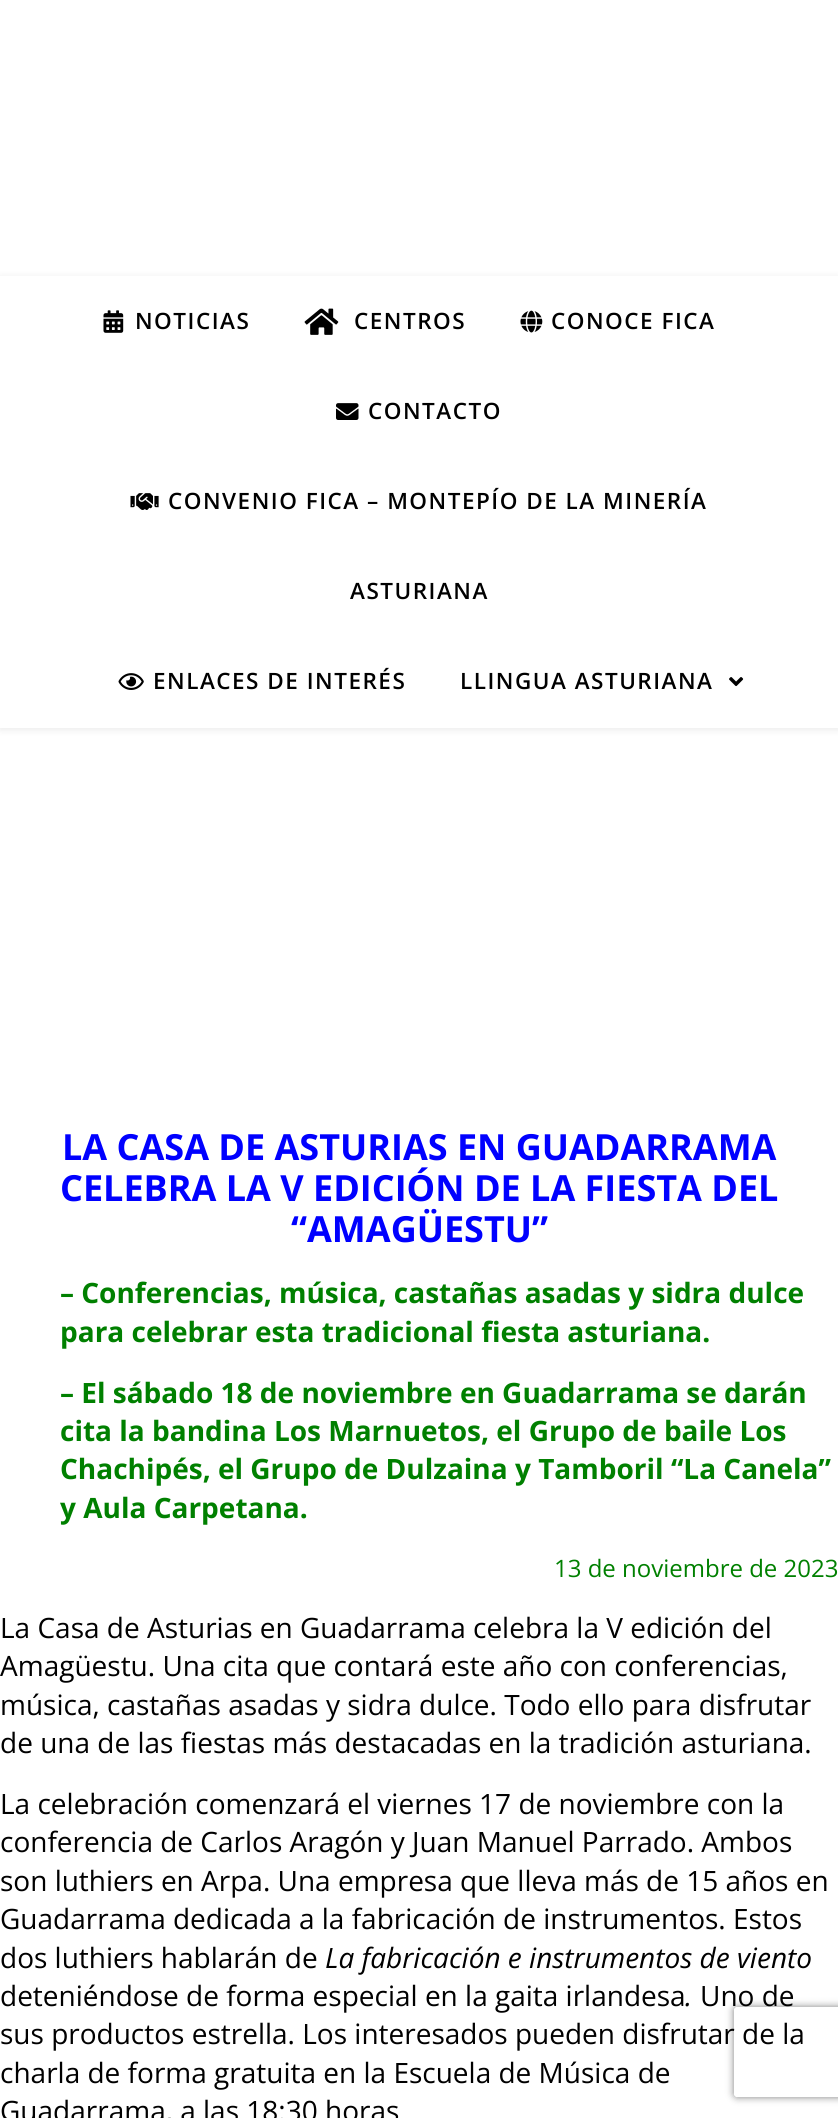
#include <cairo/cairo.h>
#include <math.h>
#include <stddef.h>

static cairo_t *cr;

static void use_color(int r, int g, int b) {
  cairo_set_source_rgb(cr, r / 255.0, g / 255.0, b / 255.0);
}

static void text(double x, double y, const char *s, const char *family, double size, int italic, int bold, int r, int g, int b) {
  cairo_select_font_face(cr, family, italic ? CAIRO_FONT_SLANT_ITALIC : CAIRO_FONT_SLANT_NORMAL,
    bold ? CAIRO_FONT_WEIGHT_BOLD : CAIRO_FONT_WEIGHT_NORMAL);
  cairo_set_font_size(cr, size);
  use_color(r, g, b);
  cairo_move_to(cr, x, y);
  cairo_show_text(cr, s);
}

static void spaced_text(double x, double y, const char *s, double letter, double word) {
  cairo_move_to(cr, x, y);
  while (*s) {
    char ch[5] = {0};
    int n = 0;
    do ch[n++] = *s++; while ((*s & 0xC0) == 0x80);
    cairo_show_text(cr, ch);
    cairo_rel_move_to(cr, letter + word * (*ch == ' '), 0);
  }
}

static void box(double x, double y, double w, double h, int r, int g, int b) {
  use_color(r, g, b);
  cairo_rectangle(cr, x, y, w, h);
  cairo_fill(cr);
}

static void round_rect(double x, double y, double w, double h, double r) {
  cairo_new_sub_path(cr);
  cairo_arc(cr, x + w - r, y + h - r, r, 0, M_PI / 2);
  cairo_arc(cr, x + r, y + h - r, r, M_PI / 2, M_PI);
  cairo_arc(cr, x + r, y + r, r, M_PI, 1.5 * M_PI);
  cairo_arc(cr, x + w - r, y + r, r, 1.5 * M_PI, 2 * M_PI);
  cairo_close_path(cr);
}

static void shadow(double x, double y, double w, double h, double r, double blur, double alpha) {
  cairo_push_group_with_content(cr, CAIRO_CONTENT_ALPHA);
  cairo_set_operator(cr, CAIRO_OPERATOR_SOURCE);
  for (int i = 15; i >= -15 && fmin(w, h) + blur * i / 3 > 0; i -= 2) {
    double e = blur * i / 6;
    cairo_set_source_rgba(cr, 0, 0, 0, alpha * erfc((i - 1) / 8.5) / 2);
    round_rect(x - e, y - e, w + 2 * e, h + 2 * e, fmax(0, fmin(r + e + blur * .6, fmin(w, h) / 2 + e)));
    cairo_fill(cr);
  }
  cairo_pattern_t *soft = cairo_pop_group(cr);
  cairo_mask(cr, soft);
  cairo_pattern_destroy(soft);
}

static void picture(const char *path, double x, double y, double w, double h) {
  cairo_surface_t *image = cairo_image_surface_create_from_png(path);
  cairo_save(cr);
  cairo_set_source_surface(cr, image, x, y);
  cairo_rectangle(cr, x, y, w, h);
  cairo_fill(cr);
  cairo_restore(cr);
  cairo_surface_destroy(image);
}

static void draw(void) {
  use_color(255, 255, 255);
  cairo_paint(cr);
  use_color(0, 0, 0);
  shadow(0, 278, 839, 451, 0, 4, 0.1);
  box(0, 276, 838, 452, 255, 255, 255);
  picture("img_01.png", 103, 310, 21, 23);
  picture("img_02.png", 304, 308, 35, 27);
  picture("img_03.png", 520, 310, 23, 23);
  picture("img_04.png", 336, 403, 23, 17);
  picture("img_05.png", 130, 493, 29, 17);
  picture("img_06.png", 118, 673, 26, 17);
  picture("img_07.png", 729, 677, 15, 10);
  cairo_save(cr);
  cairo_set_fill_rule(cr, CAIRO_FILL_RULE_EVEN_ODD);
  cairo_new_path(cr);
  cairo_move_to(cr, 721, 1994);
  cairo_line_to(cr, 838, 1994);
  cairo_line_to(cr, 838, 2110);
  cairo_line_to(cr, 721, 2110);
  cairo_close_path(cr);
  cairo_move_to(cr, 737, 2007);
  cairo_line_to(cr, 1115, 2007);
  cairo_curve_to(cr, 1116.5, 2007, 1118, 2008.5, 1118, 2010);
  cairo_line_to(cr, 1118, 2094);
  cairo_curve_to(cr, 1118, 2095.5, 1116.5, 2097, 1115, 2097);
  cairo_line_to(cr, 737, 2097);
  cairo_curve_to(cr, 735.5, 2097, 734, 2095.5, 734, 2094);
  cairo_line_to(cr, 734, 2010);
  cairo_curve_to(cr, 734, 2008.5, 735.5, 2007, 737, 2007);
  cairo_close_path(cr);
  cairo_clip(cr);
  use_color(128, 128, 128);
  shadow(734, 2007, 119, 90, 3, 4, 1);
  cairo_restore(cr);
  cairo_select_font_face(cr, "Open Sans SemiBold", CAIRO_FONT_SLANT_NORMAL, CAIRO_FONT_WEIGHT_NORMAL);
  cairo_set_font_size(cr, 22.5);
  use_color(0, 0, 0);
  spaced_text(135, 329, "NOTICIAS", 1.5, 0);
  spaced_text(354, 329, "CENTROS", 1.5, 0);
  spaced_text(551, 329, "CONOCE FICA", 1.5, 0);
  spaced_text(368, 419, "CONTACTO", 1.5, 0);
  spaced_text(168, 509, "CONVENIO FICA – MONTEPÍO DE LA MINERÍA", 1.5, 0);
  spaced_text(350, 599, "ASTURIANA", 1.5, 0);
  spaced_text(153, 689, "ENLACES DE INTERÉS", 1.5, 0);
  spaced_text(460, 689, "LLINGUA ASTURIANA", 1.5, 0);
  text(62, 1160, "LA CASA DE ASTURIAS EN GUADARRAMA", "Open Sans", 36, 0, 1, 0, 0, 255);
  text(60, 1201, "CELEBRA LA V EDICIÓN DE LA FIESTA DEL", "Open Sans", 36, 0, 1, 0, 0, 255);
  text(291, 1242, "“AMAGÜESTU”", "Open Sans", 36, 0, 1, 0, 0, 255);
  text(60, 1303, "– Conferencias, música, castañas asadas y sidra dulce", "Open Sans", 28, 0, 1, 0, 128, 0);
  text(60, 1342, "para celebrar esta tradicional fiesta asturiana.", "Open Sans", 28, 0, 1, 0, 128, 0);
  text(60, 1403, "– El sábado 18 de noviembre en Guadarrama se darán", "Open Sans", 28, 0, 1, 0, 128, 0);
  text(60, 1441, "cita la bandina Los Marnuetos, el Grupo de baile Los", "Open Sans", 28, 0, 1, 0, 128, 0);
  text(60, 1479, "Chachipés, el Grupo de Dulzaina y Tamboril “La Canela”", "Open Sans", 28, 0, 1, 0, 128, 0);
  text(60, 1518, "y Aula Carpetana.", "Open Sans", 28, 0, 1, 0, 128, 0);
  text(554, 1577, "13 de noviembre de 2023", "Open Sans", 24, 0, 0, 0, 128, 0);
  text(0, 1638, "La Casa de Asturias en Guadarrama celebra la V edición del", "Open Sans", 28, 0, 0, 0, 0, 0);
  text(0, 1676, "Amagüestu. Una cita que contará este año con conferencias,", "Open Sans", 28, 0, 0, 0, 0, 0);
  text(0, 1715, "música, castañas asadas y sidra dulce. Todo ello para disfrutar", "Open Sans", 28, 0, 0, 0, 0, 0);
  text(0, 1753, "de una de las fiestas más destacadas en la tradición asturiana.", "Open Sans", 28, 0, 0, 0, 0, 0);
  text(0, 1814, "La celebración comenzará el viernes 17 de noviembre con la", "Open Sans", 28, 0, 0, 0, 0, 0);
  text(0, 1852, "conferencia de Carlos Aragón y Juan Manuel Parrado. Ambos", "Open Sans", 28, 0, 0, 0, 0, 0);
  text(0, 1891, "son luthiers en Arpa. Una empresa que lleva más de 15 años en", "Open Sans", 28, 0, 0, 0, 0, 0);
  text(0, 1929, "Guadarrama dedicada a la fabricación de instrumentos. Estos", "Open Sans", 28, 0, 0, 0, 0, 0);
  text(0, 1968, "dos luthiers hablarán de", "Open Sans", 28, 0, 0, 0, 0, 0);
  text(325, 1968, "La fabricación e instrumentos de viento", "Open Sans", 28, 1, 0, 0, 0, 0);
  text(0, 2006, "deteniéndose de forma especial en la gaita irlandesa", "Open Sans", 28, 0, 0, 0, 0, 0);
  text(685, 2006, ".", "Open Sans", 28, 1, 0, 0, 0, 0);
  text(700, 2006, "Uno de", "Open Sans", 28, 0, 0, 0, 0, 0);
  text(0, 2044, "sus productos estrella. Los interesados pueden disfrutar de la", "Open Sans", 28, 0, 0, 0, 0, 0);
  text(0, 2083, "charla de forma gratuita en la Escuela de Música de", "Open Sans", 28, 0, 0, 0, 0, 0);
  text(0, 2121, "Guadarrama, a las 18:30 horas", "Open Sans", 28, 0, 0, 0, 0, 0);
}

int main(void) {
  cairo_surface_t *surface = cairo_image_surface_create(CAIRO_FORMAT_RGB24, 838, 2118);
  cr = cairo_create(surface);
  cairo_font_options_t *options = cairo_font_options_create();
  cairo_font_options_set_hint_metrics(options, CAIRO_HINT_METRICS_OFF);
  cairo_font_options_set_hint_style(options, CAIRO_HINT_STYLE_NONE);
  cairo_set_font_options(cr, options);
  cairo_set_miter_limit(cr, 4);
  draw();
  cairo_surface_write_to_png(surface, "out.png");
  cairo_font_options_destroy(options);
  cairo_destroy(cr);
  cairo_surface_destroy(surface);
  return 0;
}
